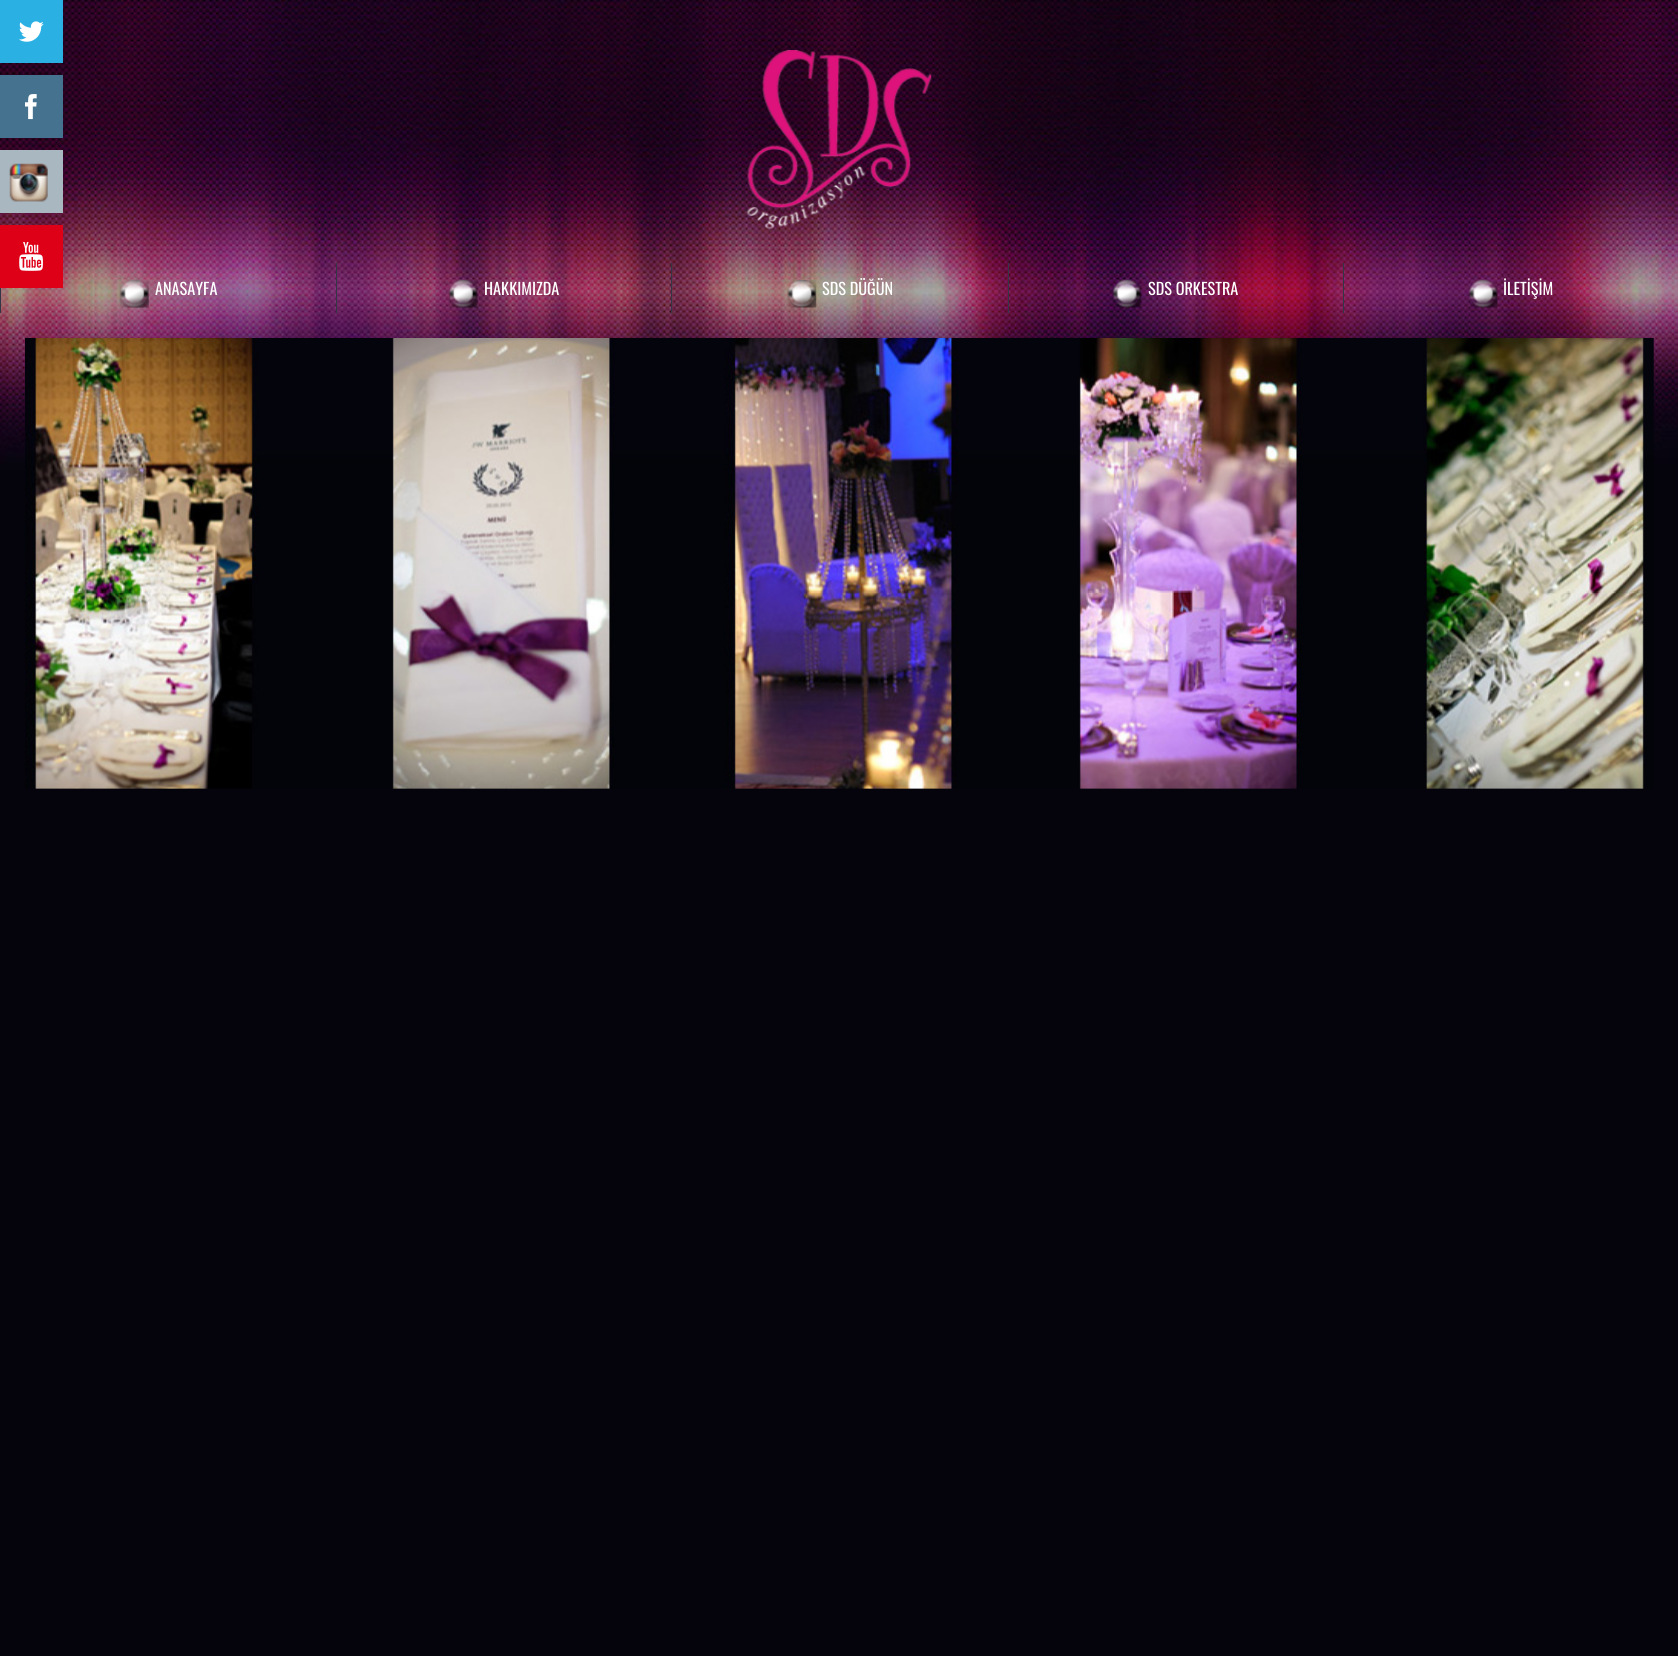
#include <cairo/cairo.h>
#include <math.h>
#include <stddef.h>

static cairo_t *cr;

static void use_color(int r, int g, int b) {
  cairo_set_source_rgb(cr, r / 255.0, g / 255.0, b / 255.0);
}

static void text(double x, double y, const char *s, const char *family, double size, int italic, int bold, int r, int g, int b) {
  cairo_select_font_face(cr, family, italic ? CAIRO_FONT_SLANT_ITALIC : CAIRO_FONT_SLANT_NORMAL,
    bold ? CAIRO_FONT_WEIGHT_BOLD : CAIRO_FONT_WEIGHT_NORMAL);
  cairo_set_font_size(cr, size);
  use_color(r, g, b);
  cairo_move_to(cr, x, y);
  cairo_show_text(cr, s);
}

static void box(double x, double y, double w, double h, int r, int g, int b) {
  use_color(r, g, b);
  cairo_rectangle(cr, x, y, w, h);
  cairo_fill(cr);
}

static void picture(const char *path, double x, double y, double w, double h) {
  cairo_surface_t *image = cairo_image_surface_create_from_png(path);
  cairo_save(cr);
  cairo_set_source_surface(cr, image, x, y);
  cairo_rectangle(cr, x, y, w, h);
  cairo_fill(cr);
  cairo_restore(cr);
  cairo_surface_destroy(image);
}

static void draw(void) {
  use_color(255, 255, 255);
  cairo_paint(cr);
  picture("img_01.png", 0, 0, 1678, 1656);
  box(0, 0, 63, 63, 43, 176, 227);
  picture("img_02.png", 19, 21, 25, 21);
  box(0, 75, 63, 63, 69, 115, 143);
  picture("img_03.png", 25, 94, 12, 26);
  box(0, 150, 63, 63, 169, 184, 192);
  picture("img_04.png", 9, 163, 39, 39);
  box(0, 225, 63, 63, 221, 0, 23);
  picture("img_05.png", 19, 242, 24, 29);
  picture("img_06.png", 747, 50, 185, 179);
  box(0, 288, 1, 25, 51, 55, 69);
  picture("img_07.png", 119, 279, 30, 29);
  box(336, 263, 1, 50, 51, 55, 69);
  picture("img_08.png", 448, 279, 30, 29);
  box(671, 263, 1, 50, 51, 55, 69);
  picture("img_09.png", 787, 280, 30, 28);
  box(1008, 263, 1, 50, 51, 55, 69);
  picture("img_10.png", 1112, 279, 30, 29);
  box(1343, 263, 1, 50, 51, 55, 69);
  picture("img_11.png", 1468, 279, 30, 29);
  picture("img_12.png", 25, 338, 1629, 451);
  text(155, 295, "ANASAYFA", "Oswald", 16.25, 0, 0, 255, 255, 255);
  text(484, 295, "HAKKIMIZDA", "Oswald", 16.25, 0, 0, 255, 255, 255);
  text(822, 295, "SDS DÜĞÜN", "Oswald", 16.25, 0, 0, 255, 255, 255);
  text(1148, 295, "SDS ORKESTRA", "Oswald", 16.25, 0, 0, 255, 255, 255);
  text(1503, 295, "İLETİŞİM", "Oswald", 16.25, 0, 0, 255, 255, 255);
}

int main(void) {
  cairo_surface_t *surface = cairo_image_surface_create(CAIRO_FORMAT_RGB24, 1678, 1656);
  cr = cairo_create(surface);
  cairo_font_options_t *options = cairo_font_options_create();
  cairo_font_options_set_hint_metrics(options, CAIRO_HINT_METRICS_OFF);
  cairo_font_options_set_hint_style(options, CAIRO_HINT_STYLE_NONE);
  cairo_set_font_options(cr, options);
  cairo_set_miter_limit(cr, 4);
  draw();
  cairo_surface_write_to_png(surface, "out.png");
  cairo_font_options_destroy(options);
  cairo_destroy(cr);
  cairo_surface_destroy(surface);
  return 0;
}
